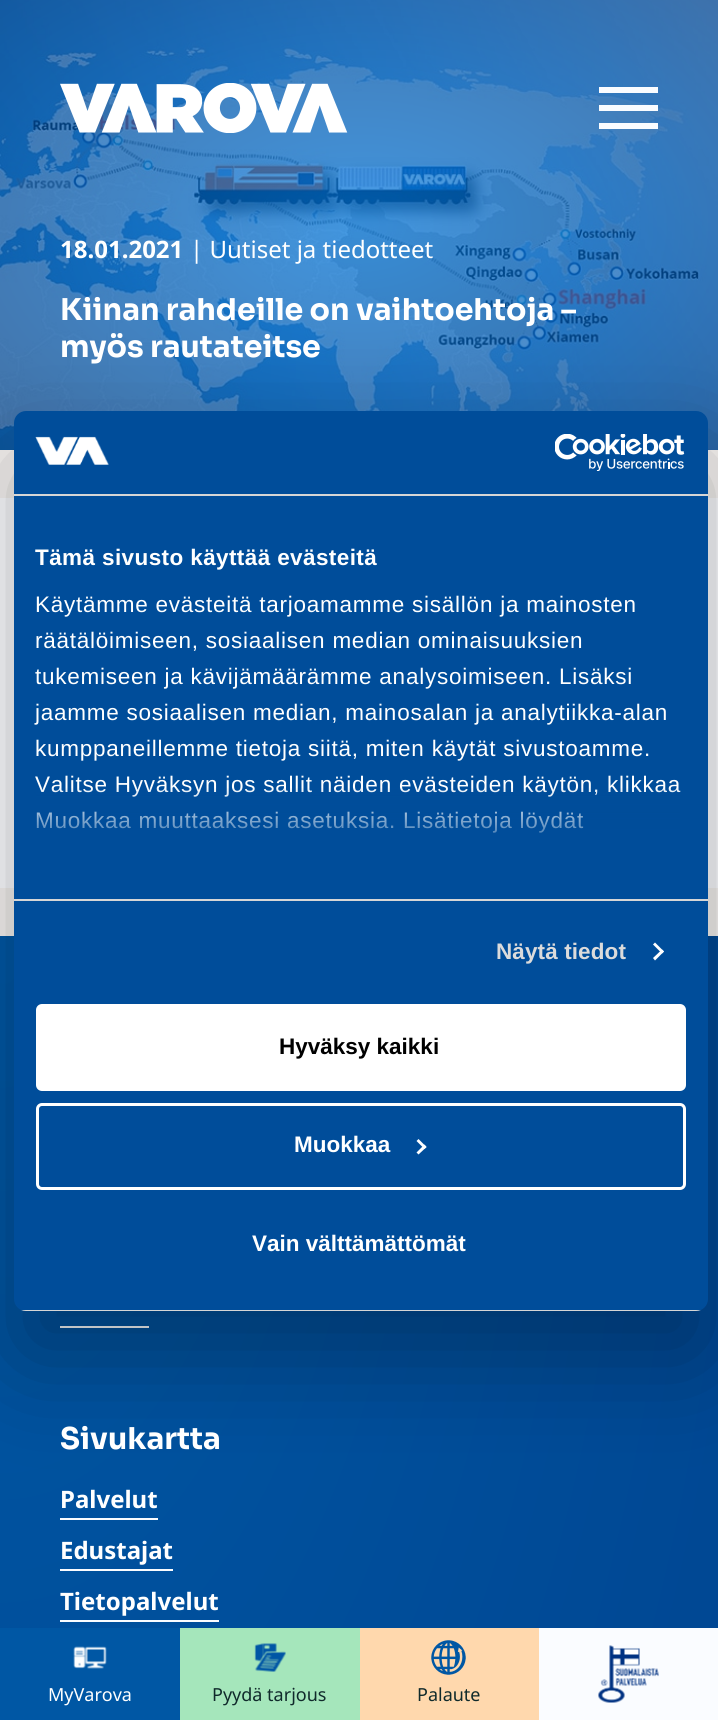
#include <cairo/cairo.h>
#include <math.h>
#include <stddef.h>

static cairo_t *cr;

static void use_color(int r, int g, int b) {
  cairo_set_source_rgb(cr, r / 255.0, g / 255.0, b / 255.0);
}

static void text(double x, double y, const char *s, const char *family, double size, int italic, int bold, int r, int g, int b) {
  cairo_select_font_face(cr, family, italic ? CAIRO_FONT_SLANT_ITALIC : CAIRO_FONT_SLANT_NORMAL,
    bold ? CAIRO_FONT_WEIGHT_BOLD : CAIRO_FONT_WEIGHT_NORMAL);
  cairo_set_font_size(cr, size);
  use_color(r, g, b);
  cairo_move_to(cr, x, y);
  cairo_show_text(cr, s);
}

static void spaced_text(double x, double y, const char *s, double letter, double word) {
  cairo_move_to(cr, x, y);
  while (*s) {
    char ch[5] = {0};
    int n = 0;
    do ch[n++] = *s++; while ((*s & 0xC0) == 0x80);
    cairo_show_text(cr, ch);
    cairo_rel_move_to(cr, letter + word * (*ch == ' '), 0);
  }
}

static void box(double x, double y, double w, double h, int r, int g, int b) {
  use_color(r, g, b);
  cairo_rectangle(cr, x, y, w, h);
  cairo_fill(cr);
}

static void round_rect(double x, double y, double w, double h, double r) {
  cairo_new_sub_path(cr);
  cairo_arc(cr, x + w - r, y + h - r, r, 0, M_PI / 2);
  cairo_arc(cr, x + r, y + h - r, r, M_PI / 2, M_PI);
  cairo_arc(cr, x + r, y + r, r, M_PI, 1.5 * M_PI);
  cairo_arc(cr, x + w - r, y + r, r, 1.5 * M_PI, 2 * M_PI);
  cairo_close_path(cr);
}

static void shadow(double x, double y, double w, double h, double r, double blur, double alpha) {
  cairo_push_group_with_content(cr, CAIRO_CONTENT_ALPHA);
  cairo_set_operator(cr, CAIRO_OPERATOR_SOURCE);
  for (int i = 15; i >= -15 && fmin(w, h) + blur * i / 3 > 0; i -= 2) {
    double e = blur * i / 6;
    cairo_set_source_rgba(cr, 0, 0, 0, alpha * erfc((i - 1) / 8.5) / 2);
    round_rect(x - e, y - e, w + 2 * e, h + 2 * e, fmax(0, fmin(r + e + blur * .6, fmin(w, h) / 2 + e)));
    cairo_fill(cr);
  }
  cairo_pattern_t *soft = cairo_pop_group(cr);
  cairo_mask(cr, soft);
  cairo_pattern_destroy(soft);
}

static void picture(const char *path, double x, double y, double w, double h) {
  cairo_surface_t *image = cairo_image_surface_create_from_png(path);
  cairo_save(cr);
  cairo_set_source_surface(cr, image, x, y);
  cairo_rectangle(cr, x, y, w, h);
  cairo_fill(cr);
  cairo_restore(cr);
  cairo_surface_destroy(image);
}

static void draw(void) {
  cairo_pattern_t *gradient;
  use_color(245, 242, 240);
  cairo_paint(cr);
  picture("img_02.png", 0, 0, 718, 450);
  picture("img_01.png", 60, 83, 288, 50);
  cairo_save(cr);
  cairo_rectangle(cr, 599, 78, 60, 60);
  cairo_clip(cr);
  use_color(250, 252, 255);
  cairo_new_path(cr);
  cairo_move_to(cr, 598, 87);
  cairo_line_to(cr, 658, 87);
  cairo_line_to(cr, 658, 93);
  cairo_line_to(cr, 598, 93);
  cairo_close_path(cr);
  cairo_move_to(cr, 598, 105);
  cairo_line_to(cr, 658, 105);
  cairo_line_to(cr, 658, 111);
  cairo_line_to(cr, 598, 111);
  cairo_close_path(cr);
  cairo_move_to(cr, 598, 123);
  cairo_line_to(cr, 658, 123);
  cairo_line_to(cr, 658, 129);
  cairo_line_to(cr, 598, 129);
  cairo_close_path(cr);
  cairo_fill(cr);
  cairo_restore(cr);
  box(0, 498, 718, 390, 250, 252, 255);
  gradient = cairo_pattern_create_radial(0, 0, 0, 0, 0, 1);
  cairo_pattern_set_matrix(gradient, &(cairo_matrix_t){1.0 / 1016, 0, 0, 1.0 / 2060, -1.0 * 0 / 1016, -1.0 * 936 / 2060});
  cairo_pattern_add_color_stop_rgba(gradient, 0, 0, 0.341, 0.643, 1);
  cairo_pattern_add_color_stop_rgba(gradient, 1, 0, 0.263, 0.561, 1);
  cairo_set_source(cr, gradient);
  cairo_pattern_destroy(gradient);
  cairo_rectangle(cr, 0, 936, 718, 692);
  cairo_fill(cr);
  box(60, 1326, 89, 2, 250, 252, 255);
  box(60, 1518, 98, 2, 250, 252, 255);
  box(60, 1569, 113, 2, 250, 252, 255);
  box(60, 1620, 159, 2, 250, 252, 255);
  box(539, 1628, 179, 92, 250, 252, 255);
  box(0, 1628, 180, 92, 0, 87, 164);
  picture("img_03.png", 73, 1646, 34, 23);
  box(180, 1628, 180, 92, 165, 230, 187);
  picture("img_04.png", 254, 1643, 32, 29);
  box(360, 1628, 179, 92, 255, 216, 173);
  picture("img_05.png", 431, 1640, 35, 35);
  picture("img_06.png", 598, 1645, 61, 58);
  use_color(0, 0, 0);
  shadow(14, 459, 694, 900, 12, 51, 0.3);
  use_color(0, 77, 154);
  round_rect(14, 411, 694, 900, 12);
  cairo_fill(cr);
  box(14, 494, 694, 2, 214, 214, 214);
  picture("img_07.png", 35, 436, 74, 29);
  picture("img_08.png", 555, 434, 130, 37);
  box(14, 899, 694, 2, 214, 214, 214);
  use_color(255, 255, 255);
  cairo_new_path(cr);
  cairo_move_to(cr, 655, 942.5);
  cairo_line_to(cr, 664, 951.5);
  cairo_line_to(cr, 662, 953.5);
  cairo_line_to(cr, 653, 944.5);
  cairo_close_path(cr);
  cairo_fill(cr);
  cairo_new_path(cr);
  cairo_move_to(cr, 662, 949.5);
  cairo_line_to(cr, 664, 951.5);
  cairo_line_to(cr, 655, 960.5);
  cairo_line_to(cr, 653, 958);
  cairo_close_path(cr);
  cairo_fill(cr);
  cairo_save(cr);
  round_rect(14, 411, 694, 900, 12);
  cairo_clip(cr);
  box(14, 1310, 694, 1, 214, 214, 214);
  cairo_restore(cr);
  round_rect(37.5, 1005.5, 647, 84, 4.5);
  cairo_fill_preserve(cr);
  cairo_set_line_width(cr, 3);
  cairo_stroke(cr);
  round_rect(37.5, 1104.5, 647, 84, 4.5);
  cairo_stroke(cr);
  cairo_new_path(cr);
  cairo_move_to(cr, 418.5, 1139);
  cairo_line_to(cr, 426.5, 1147);
  cairo_line_to(cr, 424.5, 1149);
  cairo_line_to(cr, 416.5, 1141);
  cairo_close_path(cr);
  cairo_fill(cr);
  cairo_new_path(cr);
  cairo_move_to(cr, 424.5, 1144.5);
  cairo_line_to(cr, 426.5, 1147);
  cairo_line_to(cr, 418.5, 1154.5);
  cairo_line_to(cr, 416.5, 1152.5);
  cairo_close_path(cr);
  cairo_fill(cr);
  text(60, 258, "18.01.2021", "Noto Sans", 24, 0, 1, 255, 255, 255);
  text(190, 258, "| Uutiset ja tiedotteet", "Noto Sans", 24, 0, 0, 255, 255, 255);
  text(60, 320, "Kiinan rahdeille on vaihtoehtoja –", "Sora", 30, 0, 1, 255, 255, 255);
  text(60, 357, "myös rautateitse", "Sora", 30, 0, 1, 255, 255, 255);
  text(60, 1449, "Sivukartta", "Sora", 30, 0, 1, 255, 255, 255);
  text(60, 1508, "Palvelut", "Noto Sans", 24, 0, 1, 255, 255, 255);
  text(60, 1559, "Edustajat", "Noto Sans", 24, 0, 1, 255, 255, 255);
  text(60, 1610, "Tietopalvelut", "Noto Sans", 24, 0, 1, 255, 255, 255);
  text(48, 1701, "MyVarova", "Noto Sans", 18, 0, 0, 255, 255, 255);
  text(212, 1701, "Pyydä tarjous", "Noto Sans", 18, 0, 0, 16, 42, 43);
  text(417, 1701, "Palaute", "Noto Sans", 18, 0, 0, 16, 42, 43);
  cairo_select_font_face(cr, "Liberation Sans", CAIRO_FONT_SLANT_NORMAL, CAIRO_FONT_WEIGHT_BOLD);
  cairo_set_font_size(cr, 22.5);
  use_color(255, 255, 255);
  spaced_text(35, 565, "Tämä sivusto käyttää evästeitä", 0.4, 0);
  cairo_select_font_face(cr, "Liberation Sans", CAIRO_FONT_SLANT_NORMAL, CAIRO_FONT_WEIGHT_NORMAL);
  spaced_text(35, 612, "Käytämme evästeitä tarjoamamme sisällön ja mainosten", 0.75, 0);
  spaced_text(35, 648, "räätälöimiseen, sosiaalisen median ominaisuuksien", 0.75, 0);
  spaced_text(35, 684, "tukemiseen ja kävijämäärämme analysoimiseen. Lisäksi", 0.75, 0);
  spaced_text(35, 720, "jaamme sosiaalisen median, mainosalan ja analytiikka-alan", 0.75, 0);
  spaced_text(35, 756, "kumppaneillemme tietoja siitä, miten käytät sivustoamme.", 0.75, 0);
  spaced_text(35, 792, "Valitse Hyväksyn jos sallit näiden evästeiden käytön, klikkaa", 0.75, 0);
  spaced_text(35, 828, "Muokkaa muuttaaksesi asetuksia. Lisätietoja löydät", 0.75, 0);
  gradient = cairo_pattern_create_linear(350, 898, 350, 786);
  cairo_pattern_add_color_stop_rgba(gradient, 0, 0, 0.302, 0.604, 1);
  cairo_pattern_add_color_stop_rgba(gradient, 0.5, 0, 0.302, 0.604, 0.8);
  cairo_pattern_add_color_stop_rgba(gradient, 1, 0, 0.302, 0.604, 0);
  cairo_set_source(cr, gradient);
  cairo_pattern_destroy(gradient);
  cairo_rectangle(cr, 36, 788, 644, 45);
  cairo_fill(cr);
  cairo_select_font_face(cr, "Liberation Sans", CAIRO_FONT_SLANT_NORMAL, CAIRO_FONT_WEIGHT_BOLD);
  use_color(219, 219, 219);
  spaced_text(496, 959, "Näytä tiedot", 0.1, 0);
  text(279, 1054, "Hyväksy kaikki", "Liberation Sans", 22.5, 0, 1, 0, 0, 0);
  text(294, 1152, "Muokkaa", "Liberation Sans", 22.5, 0, 1, 255, 255, 255);
  text(252, 1251, "Vain välttämättömät", "Liberation Sans", 22.5, 0, 1, 255, 255, 255);
}

int main(void) {
  cairo_surface_t *surface = cairo_image_surface_create(CAIRO_FORMAT_RGB24, 718, 1720);
  cr = cairo_create(surface);
  cairo_font_options_t *options = cairo_font_options_create();
  cairo_font_options_set_hint_metrics(options, CAIRO_HINT_METRICS_OFF);
  cairo_font_options_set_hint_style(options, CAIRO_HINT_STYLE_NONE);
  cairo_set_font_options(cr, options);
  cairo_set_miter_limit(cr, 4);
  draw();
  cairo_surface_write_to_png(surface, "out.png");
  cairo_font_options_destroy(options);
  cairo_destroy(cr);
  cairo_surface_destroy(surface);
  return 0;
}
